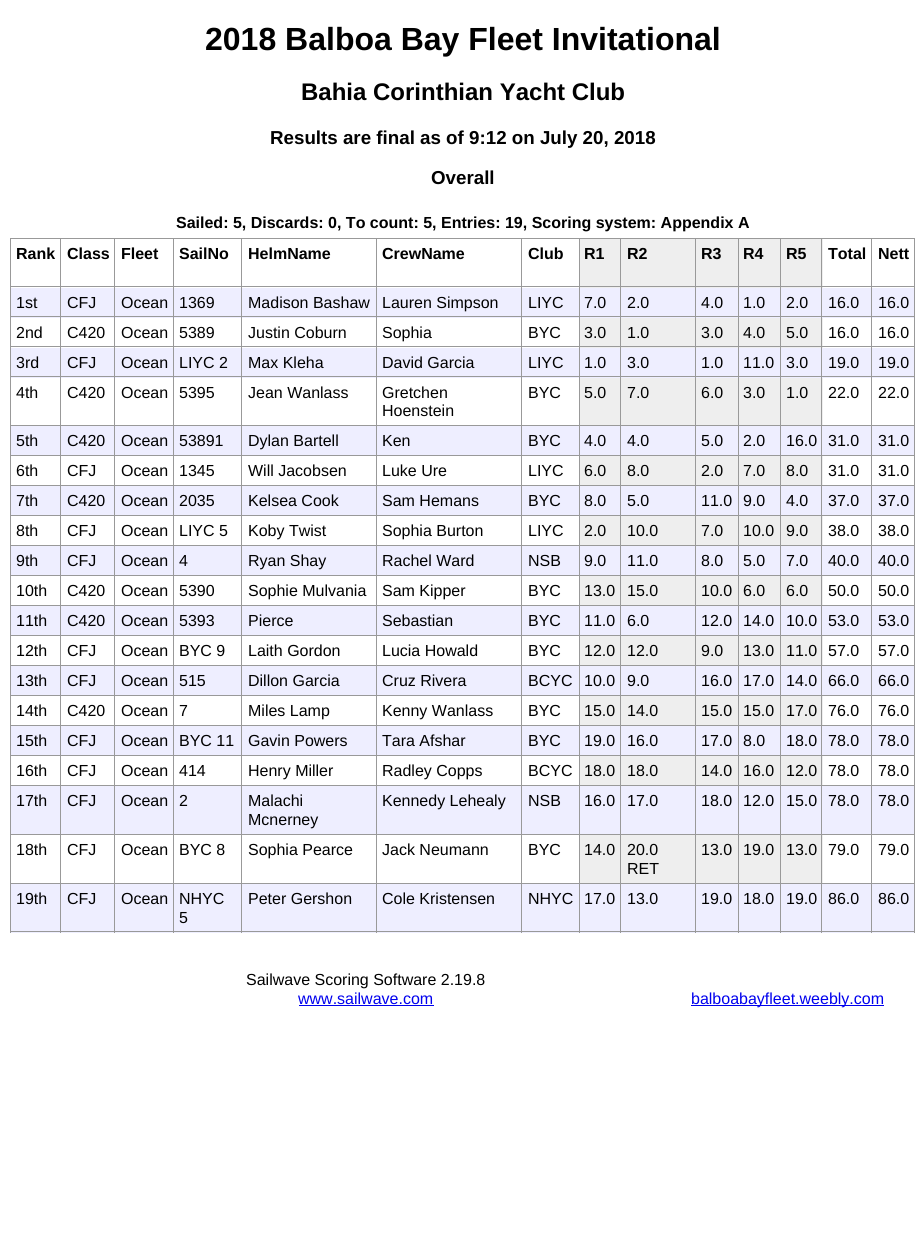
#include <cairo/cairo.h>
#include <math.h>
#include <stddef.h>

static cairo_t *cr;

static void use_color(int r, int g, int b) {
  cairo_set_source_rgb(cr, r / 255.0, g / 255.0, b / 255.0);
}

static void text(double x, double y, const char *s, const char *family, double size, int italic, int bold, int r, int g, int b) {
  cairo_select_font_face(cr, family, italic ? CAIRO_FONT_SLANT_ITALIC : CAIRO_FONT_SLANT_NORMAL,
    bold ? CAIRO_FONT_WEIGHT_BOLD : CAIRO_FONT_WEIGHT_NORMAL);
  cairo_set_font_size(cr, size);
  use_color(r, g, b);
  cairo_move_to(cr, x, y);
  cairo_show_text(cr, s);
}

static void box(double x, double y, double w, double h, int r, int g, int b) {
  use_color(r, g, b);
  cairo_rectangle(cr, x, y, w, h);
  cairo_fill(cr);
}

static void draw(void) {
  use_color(255, 255, 255);
  cairo_paint(cr);
  box(10, 238, 905, 1, 153, 153, 153);
  box(914, 238, 1, 695, 153, 153, 153);
  box(11, 884, 903, 49, 238, 238, 255);
  box(10, 931, 905, 1, 153, 153, 153);
  box(10, 238, 1, 695, 153, 153, 153);
  box(580, 239, 40, 644, 238, 238, 238);
  box(621, 239, 74, 644, 238, 238, 238);
  box(696, 239, 42, 644, 238, 238, 238);
  box(739, 239, 41, 644, 238, 238, 238);
  box(781, 239, 42, 644, 238, 238, 238);
  box(871, 286, 44, 1, 153, 153, 153);
  box(11, 288, 903, 30, 238, 238, 255);
  box(871, 316, 44, 1, 153, 153, 153);
  box(871, 346, 44, 1, 153, 153, 153);
  box(11, 348, 903, 30, 238, 238, 255);
  box(871, 376, 44, 1, 153, 153, 153);
  box(871, 425, 44, 1, 153, 153, 153);
  box(11, 426, 903, 29, 238, 238, 255);
  box(871, 455, 44, 1, 153, 153, 153);
  box(871, 485, 44, 1, 153, 153, 153);
  box(11, 486, 903, 29, 238, 238, 255);
  box(871, 515, 44, 1, 153, 153, 153);
  box(871, 545, 44, 1, 153, 153, 153);
  box(11, 546, 903, 29, 238, 238, 255);
  box(871, 575, 44, 1, 153, 153, 153);
  box(871, 605, 44, 1, 153, 153, 153);
  box(11, 606, 903, 29, 238, 238, 255);
  box(871, 635, 44, 1, 153, 153, 153);
  box(871, 665, 44, 1, 153, 153, 153);
  box(11, 666, 903, 29, 238, 238, 255);
  box(871, 695, 44, 1, 153, 153, 153);
  box(871, 725, 44, 1, 153, 153, 153);
  box(11, 726, 903, 29, 238, 238, 255);
  box(871, 755, 44, 1, 153, 153, 153);
  box(871, 785, 44, 1, 153, 153, 153);
  box(11, 786, 903, 48, 238, 238, 255);
  box(871, 834, 44, 1, 153, 153, 153);
  box(871, 883, 44, 1, 153, 153, 153);
  box(871, 883, 1, 50, 153, 153, 153);
  box(821, 883, 52, 1, 153, 153, 153);
  box(871, 834, 1, 50, 153, 153, 153);
  box(821, 834, 52, 1, 153, 153, 153);
  box(871, 785, 1, 50, 153, 153, 153);
  box(821, 785, 52, 1, 153, 153, 153);
  box(871, 755, 1, 31, 153, 153, 153);
  box(821, 755, 52, 1, 153, 153, 153);
  box(871, 725, 1, 31, 153, 153, 153);
  box(821, 725, 52, 1, 153, 153, 153);
  box(871, 695, 1, 31, 153, 153, 153);
  box(821, 695, 52, 1, 153, 153, 153);
  box(871, 665, 1, 31, 153, 153, 153);
  box(821, 665, 52, 1, 153, 153, 153);
  box(871, 635, 1, 31, 153, 153, 153);
  box(821, 635, 52, 1, 153, 153, 153);
  box(871, 605, 1, 31, 153, 153, 153);
  box(821, 605, 52, 1, 153, 153, 153);
  box(871, 575, 1, 31, 153, 153, 153);
  box(821, 575, 52, 1, 153, 153, 153);
  box(871, 545, 1, 31, 153, 153, 153);
  box(821, 545, 52, 1, 153, 153, 153);
  box(871, 515, 1, 31, 153, 153, 153);
  box(821, 515, 52, 1, 153, 153, 153);
  box(871, 485, 1, 31, 153, 153, 153);
  box(821, 485, 52, 1, 153, 153, 153);
  box(871, 455, 1, 31, 153, 153, 153);
  box(821, 455, 52, 1, 153, 153, 153);
  box(871, 425, 1, 31, 153, 153, 153);
  box(821, 425, 52, 1, 153, 153, 153);
  box(871, 376, 1, 50, 153, 153, 153);
  box(821, 376, 52, 1, 153, 153, 153);
  box(871, 346, 1, 32, 153, 153, 153);
  box(821, 346, 52, 1, 153, 153, 153);
  box(871, 316, 1, 32, 153, 153, 153);
  box(821, 316, 52, 1, 153, 153, 153);
  box(871, 286, 1, 32, 153, 153, 153);
  box(821, 286, 52, 1, 153, 153, 153);
  box(821, 883, 1, 50, 153, 153, 153);
  box(780, 883, 43, 1, 153, 153, 153);
  box(821, 834, 1, 50, 153, 153, 153);
  box(780, 834, 43, 1, 153, 153, 153);
  box(821, 785, 1, 50, 153, 153, 153);
  box(780, 785, 43, 1, 153, 153, 153);
  box(821, 755, 1, 31, 153, 153, 153);
  box(780, 755, 43, 1, 153, 153, 153);
  box(821, 725, 1, 31, 153, 153, 153);
  box(780, 725, 43, 1, 153, 153, 153);
  box(821, 695, 1, 31, 153, 153, 153);
  box(780, 695, 43, 1, 153, 153, 153);
  box(821, 665, 1, 31, 153, 153, 153);
  box(780, 665, 43, 1, 153, 153, 153);
  box(821, 635, 1, 31, 153, 153, 153);
  box(780, 635, 43, 1, 153, 153, 153);
  box(821, 605, 1, 31, 153, 153, 153);
  box(780, 605, 43, 1, 153, 153, 153);
  box(821, 575, 1, 31, 153, 153, 153);
  box(780, 575, 43, 1, 153, 153, 153);
  box(821, 545, 1, 31, 153, 153, 153);
  box(780, 545, 43, 1, 153, 153, 153);
  box(821, 515, 1, 31, 153, 153, 153);
  box(780, 515, 43, 1, 153, 153, 153);
  box(821, 485, 1, 31, 153, 153, 153);
  box(780, 485, 43, 1, 153, 153, 153);
  box(821, 455, 1, 31, 153, 153, 153);
  box(780, 455, 43, 1, 153, 153, 153);
  box(821, 425, 1, 31, 153, 153, 153);
  box(780, 425, 43, 1, 153, 153, 153);
  box(821, 376, 1, 50, 153, 153, 153);
  box(780, 376, 43, 1, 153, 153, 153);
  box(821, 346, 1, 32, 153, 153, 153);
  box(780, 346, 43, 1, 153, 153, 153);
  box(821, 316, 1, 32, 153, 153, 153);
  box(780, 316, 43, 1, 153, 153, 153);
  box(821, 286, 1, 32, 153, 153, 153);
  box(780, 286, 43, 1, 153, 153, 153);
  box(780, 883, 1, 50, 153, 153, 153);
  box(738, 883, 43, 1, 153, 153, 153);
  box(780, 834, 1, 50, 153, 153, 153);
  box(738, 834, 43, 1, 153, 153, 153);
  box(780, 785, 1, 50, 153, 153, 153);
  box(738, 785, 43, 1, 153, 153, 153);
  box(780, 755, 1, 31, 153, 153, 153);
  box(738, 755, 43, 1, 153, 153, 153);
  box(780, 725, 1, 31, 153, 153, 153);
  box(738, 725, 43, 1, 153, 153, 153);
  box(780, 695, 1, 31, 153, 153, 153);
  box(738, 695, 43, 1, 153, 153, 153);
  box(780, 665, 1, 31, 153, 153, 153);
  box(738, 665, 43, 1, 153, 153, 153);
  box(780, 635, 1, 31, 153, 153, 153);
  box(738, 635, 43, 1, 153, 153, 153);
  box(780, 605, 1, 31, 153, 153, 153);
  box(738, 605, 43, 1, 153, 153, 153);
  box(780, 575, 1, 31, 153, 153, 153);
  box(738, 575, 43, 1, 153, 153, 153);
  box(780, 545, 1, 31, 153, 153, 153);
  box(738, 545, 43, 1, 153, 153, 153);
  box(780, 515, 1, 31, 153, 153, 153);
  box(738, 515, 43, 1, 153, 153, 153);
  box(780, 485, 1, 31, 153, 153, 153);
  box(738, 485, 43, 1, 153, 153, 153);
  box(780, 455, 1, 31, 153, 153, 153);
  box(738, 455, 43, 1, 153, 153, 153);
  box(780, 425, 1, 31, 153, 153, 153);
  box(738, 425, 43, 1, 153, 153, 153);
  box(780, 376, 1, 50, 153, 153, 153);
  box(738, 376, 43, 1, 153, 153, 153);
  box(780, 346, 1, 32, 153, 153, 153);
  box(738, 346, 43, 1, 153, 153, 153);
  box(780, 316, 1, 32, 153, 153, 153);
  box(738, 316, 43, 1, 153, 153, 153);
  box(780, 286, 1, 32, 153, 153, 153);
  box(738, 286, 43, 1, 153, 153, 153);
  box(738, 883, 1, 50, 153, 153, 153);
  box(695, 883, 44, 1, 153, 153, 153);
  box(738, 834, 1, 50, 153, 153, 153);
  box(695, 834, 44, 1, 153, 153, 153);
  box(738, 785, 1, 50, 153, 153, 153);
  box(695, 785, 44, 1, 153, 153, 153);
  box(738, 755, 1, 31, 153, 153, 153);
  box(695, 755, 44, 1, 153, 153, 153);
  box(738, 725, 1, 31, 153, 153, 153);
  box(695, 725, 44, 1, 153, 153, 153);
  box(738, 695, 1, 31, 153, 153, 153);
  box(695, 695, 44, 1, 153, 153, 153);
  box(738, 665, 1, 31, 153, 153, 153);
  box(695, 665, 44, 1, 153, 153, 153);
  box(738, 635, 1, 31, 153, 153, 153);
  box(695, 635, 44, 1, 153, 153, 153);
  box(738, 605, 1, 31, 153, 153, 153);
  box(695, 605, 44, 1, 153, 153, 153);
  box(738, 575, 1, 31, 153, 153, 153);
  box(695, 575, 44, 1, 153, 153, 153);
  box(738, 545, 1, 31, 153, 153, 153);
  box(695, 545, 44, 1, 153, 153, 153);
  box(738, 515, 1, 31, 153, 153, 153);
  box(695, 515, 44, 1, 153, 153, 153);
  box(738, 485, 1, 31, 153, 153, 153);
  box(695, 485, 44, 1, 153, 153, 153);
  box(738, 455, 1, 31, 153, 153, 153);
  box(695, 455, 44, 1, 153, 153, 153);
  box(738, 425, 1, 31, 153, 153, 153);
  box(695, 425, 44, 1, 153, 153, 153);
  box(738, 376, 1, 50, 153, 153, 153);
  box(695, 376, 44, 1, 153, 153, 153);
  box(738, 346, 1, 32, 153, 153, 153);
  box(695, 346, 44, 1, 153, 153, 153);
  box(738, 316, 1, 32, 153, 153, 153);
  box(695, 316, 44, 1, 153, 153, 153);
  box(738, 286, 1, 32, 153, 153, 153);
  box(695, 286, 44, 1, 153, 153, 153);
  box(695, 883, 1, 50, 153, 153, 153);
  box(620, 883, 76, 1, 153, 153, 153);
  box(695, 834, 1, 50, 153, 153, 153);
  box(620, 834, 76, 1, 153, 153, 153);
  box(695, 785, 1, 50, 153, 153, 153);
  box(620, 785, 76, 1, 153, 153, 153);
  box(695, 755, 1, 31, 153, 153, 153);
  box(620, 755, 76, 1, 153, 153, 153);
  box(695, 725, 1, 31, 153, 153, 153);
  box(620, 725, 76, 1, 153, 153, 153);
  box(695, 695, 1, 31, 153, 153, 153);
  box(620, 695, 76, 1, 153, 153, 153);
  box(695, 665, 1, 31, 153, 153, 153);
  box(620, 665, 76, 1, 153, 153, 153);
  box(695, 635, 1, 31, 153, 153, 153);
  box(620, 635, 76, 1, 153, 153, 153);
  box(695, 605, 1, 31, 153, 153, 153);
  box(620, 605, 76, 1, 153, 153, 153);
  box(695, 575, 1, 31, 153, 153, 153);
  box(620, 575, 76, 1, 153, 153, 153);
  box(695, 545, 1, 31, 153, 153, 153);
  box(620, 545, 76, 1, 153, 153, 153);
  box(695, 515, 1, 31, 153, 153, 153);
  box(620, 515, 76, 1, 153, 153, 153);
  box(695, 485, 1, 31, 153, 153, 153);
  box(620, 485, 76, 1, 153, 153, 153);
  box(695, 455, 1, 31, 153, 153, 153);
  box(620, 455, 76, 1, 153, 153, 153);
  box(695, 425, 1, 31, 153, 153, 153);
  box(620, 425, 76, 1, 153, 153, 153);
  box(695, 376, 1, 50, 153, 153, 153);
  box(620, 376, 76, 1, 153, 153, 153);
  box(695, 346, 1, 32, 153, 153, 153);
  box(620, 346, 76, 1, 153, 153, 153);
  box(695, 316, 1, 32, 153, 153, 153);
  box(620, 316, 76, 1, 153, 153, 153);
  box(695, 286, 1, 32, 153, 153, 153);
  box(620, 286, 76, 1, 153, 153, 153);
  box(620, 883, 1, 50, 153, 153, 153);
  box(579, 883, 42, 1, 153, 153, 153);
  box(620, 834, 1, 50, 153, 153, 153);
  box(579, 834, 42, 1, 153, 153, 153);
  box(620, 785, 1, 50, 153, 153, 153);
  box(579, 785, 42, 1, 153, 153, 153);
  box(620, 755, 1, 31, 153, 153, 153);
  box(579, 755, 42, 1, 153, 153, 153);
  box(620, 725, 1, 31, 153, 153, 153);
  box(579, 725, 42, 1, 153, 153, 153);
  box(620, 695, 1, 31, 153, 153, 153);
  box(579, 695, 42, 1, 153, 153, 153);
  box(620, 665, 1, 31, 153, 153, 153);
  box(579, 665, 42, 1, 153, 153, 153);
  box(620, 635, 1, 31, 153, 153, 153);
  box(579, 635, 42, 1, 153, 153, 153);
  box(620, 605, 1, 31, 153, 153, 153);
  box(579, 605, 42, 1, 153, 153, 153);
  box(620, 575, 1, 31, 153, 153, 153);
  box(579, 575, 42, 1, 153, 153, 153);
  box(620, 545, 1, 31, 153, 153, 153);
  box(579, 545, 42, 1, 153, 153, 153);
  box(620, 515, 1, 31, 153, 153, 153);
  box(579, 515, 42, 1, 153, 153, 153);
  box(620, 485, 1, 31, 153, 153, 153);
  box(579, 485, 42, 1, 153, 153, 153);
  box(620, 455, 1, 31, 153, 153, 153);
  box(579, 455, 42, 1, 153, 153, 153);
  box(620, 425, 1, 31, 153, 153, 153);
  box(579, 425, 42, 1, 153, 153, 153);
  box(620, 376, 1, 50, 153, 153, 153);
  box(579, 376, 42, 1, 153, 153, 153);
  box(620, 346, 1, 32, 153, 153, 153);
  box(579, 346, 42, 1, 153, 153, 153);
  box(620, 316, 1, 32, 153, 153, 153);
  box(579, 316, 42, 1, 153, 153, 153);
  box(620, 286, 1, 32, 153, 153, 153);
  box(579, 286, 42, 1, 153, 153, 153);
  box(579, 883, 1, 50, 153, 153, 153);
  box(521, 883, 59, 1, 153, 153, 153);
  box(579, 834, 1, 50, 153, 153, 153);
  box(521, 834, 59, 1, 153, 153, 153);
  box(579, 785, 1, 50, 153, 153, 153);
  box(521, 785, 59, 1, 153, 153, 153);
  box(579, 755, 1, 31, 153, 153, 153);
  box(521, 755, 59, 1, 153, 153, 153);
  box(579, 725, 1, 31, 153, 153, 153);
  box(521, 725, 59, 1, 153, 153, 153);
  box(579, 695, 1, 31, 153, 153, 153);
  box(521, 695, 59, 1, 153, 153, 153);
  box(579, 665, 1, 31, 153, 153, 153);
  box(521, 665, 59, 1, 153, 153, 153);
  box(579, 635, 1, 31, 153, 153, 153);
  box(521, 635, 59, 1, 153, 153, 153);
  box(579, 605, 1, 31, 153, 153, 153);
  box(521, 605, 59, 1, 153, 153, 153);
  box(579, 575, 1, 31, 153, 153, 153);
  box(521, 575, 59, 1, 153, 153, 153);
  box(579, 545, 1, 31, 153, 153, 153);
  box(521, 545, 59, 1, 153, 153, 153);
  box(579, 515, 1, 31, 153, 153, 153);
  box(521, 515, 59, 1, 153, 153, 153);
  box(579, 485, 1, 31, 153, 153, 153);
  box(521, 485, 59, 1, 153, 153, 153);
  box(579, 455, 1, 31, 153, 153, 153);
  box(521, 455, 59, 1, 153, 153, 153);
  box(579, 425, 1, 31, 153, 153, 153);
  box(521, 425, 59, 1, 153, 153, 153);
  box(579, 376, 1, 50, 153, 153, 153);
  box(521, 376, 59, 1, 153, 153, 153);
  box(579, 346, 1, 32, 153, 153, 153);
  box(521, 346, 59, 1, 153, 153, 153);
  box(579, 316, 1, 32, 153, 153, 153);
  box(521, 316, 59, 1, 153, 153, 153);
  box(579, 286, 1, 32, 153, 153, 153);
  box(521, 286, 59, 1, 153, 153, 153);
  box(521, 883, 1, 50, 153, 153, 153);
  box(376, 883, 147, 1, 153, 153, 153);
  box(521, 834, 1, 50, 153, 153, 153);
  box(376, 834, 147, 1, 153, 153, 153);
  box(521, 785, 1, 50, 153, 153, 153);
  box(376, 785, 147, 1, 153, 153, 153);
  box(521, 755, 1, 31, 153, 153, 153);
  box(376, 755, 147, 1, 153, 153, 153);
  box(521, 725, 1, 31, 153, 153, 153);
  box(376, 725, 147, 1, 153, 153, 153);
  box(521, 695, 1, 31, 153, 153, 153);
  box(376, 695, 147, 1, 153, 153, 153);
  box(521, 665, 1, 31, 153, 153, 153);
  box(376, 665, 147, 1, 153, 153, 153);
  box(521, 635, 1, 31, 153, 153, 153);
  box(376, 635, 147, 1, 153, 153, 153);
  box(521, 605, 1, 31, 153, 153, 153);
  box(376, 605, 147, 1, 153, 153, 153);
  box(521, 575, 1, 31, 153, 153, 153);
  box(376, 575, 147, 1, 153, 153, 153);
  box(521, 545, 1, 31, 153, 153, 153);
  box(376, 545, 147, 1, 153, 153, 153);
  box(521, 515, 1, 31, 153, 153, 153);
  box(376, 515, 147, 1, 153, 153, 153);
  box(521, 485, 1, 31, 153, 153, 153);
  box(376, 485, 147, 1, 153, 153, 153);
  box(521, 455, 1, 31, 153, 153, 153);
  box(376, 455, 147, 1, 153, 153, 153);
  box(521, 425, 1, 31, 153, 153, 153);
  box(376, 425, 147, 1, 153, 153, 153);
  box(521, 376, 1, 50, 153, 153, 153);
  box(376, 376, 147, 1, 153, 153, 153);
  box(521, 346, 1, 32, 153, 153, 153);
  box(376, 346, 147, 1, 153, 153, 153);
  box(521, 316, 1, 32, 153, 153, 153);
  box(376, 316, 147, 1, 153, 153, 153);
  box(521, 286, 1, 32, 153, 153, 153);
  box(376, 286, 147, 1, 153, 153, 153);
  box(376, 883, 1, 50, 153, 153, 153);
  box(241, 883, 137, 1, 153, 153, 153);
  box(376, 834, 1, 50, 153, 153, 153);
  box(241, 834, 137, 1, 153, 153, 153);
  box(376, 785, 1, 50, 153, 153, 153);
  box(241, 785, 137, 1, 153, 153, 153);
  box(376, 755, 1, 31, 153, 153, 153);
  box(241, 755, 137, 1, 153, 153, 153);
  box(376, 725, 1, 31, 153, 153, 153);
  box(241, 725, 137, 1, 153, 153, 153);
  box(376, 695, 1, 31, 153, 153, 153);
  box(241, 695, 137, 1, 153, 153, 153);
  box(376, 665, 1, 31, 153, 153, 153);
  box(241, 665, 137, 1, 153, 153, 153);
  box(376, 635, 1, 31, 153, 153, 153);
  box(241, 635, 137, 1, 153, 153, 153);
  box(376, 605, 1, 31, 153, 153, 153);
  box(241, 605, 137, 1, 153, 153, 153);
  box(376, 575, 1, 31, 153, 153, 153);
  box(241, 575, 137, 1, 153, 153, 153);
  box(376, 545, 1, 31, 153, 153, 153);
  box(241, 545, 137, 1, 153, 153, 153);
  box(376, 515, 1, 31, 153, 153, 153);
  box(241, 515, 137, 1, 153, 153, 153);
  box(376, 485, 1, 31, 153, 153, 153);
  box(241, 485, 137, 1, 153, 153, 153);
  box(376, 455, 1, 31, 153, 153, 153);
  box(241, 455, 137, 1, 153, 153, 153);
  box(376, 425, 1, 31, 153, 153, 153);
  box(241, 425, 137, 1, 153, 153, 153);
  box(376, 376, 1, 50, 153, 153, 153);
  box(241, 376, 137, 1, 153, 153, 153);
  box(376, 346, 1, 32, 153, 153, 153);
  box(241, 346, 137, 1, 153, 153, 153);
  box(376, 316, 1, 32, 153, 153, 153);
  box(241, 316, 137, 1, 153, 153, 153);
  box(376, 286, 1, 32, 153, 153, 153);
  box(241, 286, 137, 1, 153, 153, 153);
  box(241, 883, 1, 50, 153, 153, 153);
  box(173, 883, 70, 1, 153, 153, 153);
  box(241, 834, 1, 50, 153, 153, 153);
  box(173, 834, 70, 1, 153, 153, 153);
  box(241, 785, 1, 50, 153, 153, 153);
  box(173, 785, 70, 1, 153, 153, 153);
  box(241, 755, 1, 31, 153, 153, 153);
  box(173, 755, 70, 1, 153, 153, 153);
  box(241, 725, 1, 31, 153, 153, 153);
  box(173, 725, 70, 1, 153, 153, 153);
  box(241, 695, 1, 31, 153, 153, 153);
  box(173, 695, 70, 1, 153, 153, 153);
  box(241, 665, 1, 31, 153, 153, 153);
  box(173, 665, 70, 1, 153, 153, 153);
  box(241, 635, 1, 31, 153, 153, 153);
  box(173, 635, 70, 1, 153, 153, 153);
  box(241, 605, 1, 31, 153, 153, 153);
  box(173, 605, 70, 1, 153, 153, 153);
  box(241, 575, 1, 31, 153, 153, 153);
  box(173, 575, 70, 1, 153, 153, 153);
  box(241, 545, 1, 31, 153, 153, 153);
  box(173, 545, 70, 1, 153, 153, 153);
  box(241, 515, 1, 31, 153, 153, 153);
  box(173, 515, 70, 1, 153, 153, 153);
  box(241, 485, 1, 31, 153, 153, 153);
  box(173, 485, 70, 1, 153, 153, 153);
  box(241, 455, 1, 31, 153, 153, 153);
  box(173, 455, 70, 1, 153, 153, 153);
  box(241, 425, 1, 31, 153, 153, 153);
  box(173, 425, 70, 1, 153, 153, 153);
  box(241, 376, 1, 50, 153, 153, 153);
  box(173, 376, 70, 1, 153, 153, 153);
  box(241, 346, 1, 32, 153, 153, 153);
  box(173, 346, 70, 1, 153, 153, 153);
  box(241, 316, 1, 32, 153, 153, 153);
  box(173, 316, 70, 1, 153, 153, 153);
  box(241, 286, 1, 32, 153, 153, 153);
  box(173, 286, 70, 1, 153, 153, 153);
  box(173, 883, 1, 50, 153, 153, 153);
  box(114, 883, 60, 1, 153, 153, 153);
  box(173, 834, 1, 50, 153, 153, 153);
  box(114, 834, 60, 1, 153, 153, 153);
  box(173, 785, 1, 50, 153, 153, 153);
  box(114, 785, 60, 1, 153, 153, 153);
  box(173, 755, 1, 31, 153, 153, 153);
  box(114, 755, 60, 1, 153, 153, 153);
  box(173, 725, 1, 31, 153, 153, 153);
  box(114, 725, 60, 1, 153, 153, 153);
  box(173, 695, 1, 31, 153, 153, 153);
  box(114, 695, 60, 1, 153, 153, 153);
  box(173, 665, 1, 31, 153, 153, 153);
  box(114, 665, 60, 1, 153, 153, 153);
  box(173, 635, 1, 31, 153, 153, 153);
  box(114, 635, 60, 1, 153, 153, 153);
  box(173, 605, 1, 31, 153, 153, 153);
  box(114, 605, 60, 1, 153, 153, 153);
  box(173, 575, 1, 31, 153, 153, 153);
  box(114, 575, 60, 1, 153, 153, 153);
  box(173, 545, 1, 31, 153, 153, 153);
  box(114, 545, 60, 1, 153, 153, 153);
  box(173, 515, 1, 31, 153, 153, 153);
  box(114, 515, 60, 1, 153, 153, 153);
  box(173, 485, 1, 31, 153, 153, 153);
  box(114, 485, 60, 1, 153, 153, 153);
  box(173, 455, 1, 31, 153, 153, 153);
  box(114, 455, 60, 1, 153, 153, 153);
  box(173, 425, 1, 31, 153, 153, 153);
  box(114, 425, 60, 1, 153, 153, 153);
  box(173, 376, 1, 50, 153, 153, 153);
  box(114, 376, 60, 1, 153, 153, 153);
  box(173, 346, 1, 32, 153, 153, 153);
  box(114, 346, 60, 1, 153, 153, 153);
  box(173, 316, 1, 32, 153, 153, 153);
  box(114, 316, 60, 1, 153, 153, 153);
  box(173, 286, 1, 32, 153, 153, 153);
  box(114, 286, 60, 1, 153, 153, 153);
  box(114, 883, 1, 50, 153, 153, 153);
  box(60, 883, 55, 1, 153, 153, 153);
  box(114, 834, 1, 50, 153, 153, 153);
  box(60, 834, 55, 1, 153, 153, 153);
  box(114, 785, 1, 50, 153, 153, 153);
  box(60, 785, 55, 1, 153, 153, 153);
  box(114, 755, 1, 31, 153, 153, 153);
  box(60, 755, 55, 1, 153, 153, 153);
  box(114, 725, 1, 31, 153, 153, 153);
  box(60, 725, 55, 1, 153, 153, 153);
  box(114, 695, 1, 31, 153, 153, 153);
  box(60, 695, 55, 1, 153, 153, 153);
  box(114, 665, 1, 31, 153, 153, 153);
  box(60, 665, 55, 1, 153, 153, 153);
  box(114, 635, 1, 31, 153, 153, 153);
  box(60, 635, 55, 1, 153, 153, 153);
  box(114, 605, 1, 31, 153, 153, 153);
  box(60, 605, 55, 1, 153, 153, 153);
  box(114, 575, 1, 31, 153, 153, 153);
  box(60, 575, 55, 1, 153, 153, 153);
  box(114, 545, 1, 31, 153, 153, 153);
  box(60, 545, 55, 1, 153, 153, 153);
  box(114, 515, 1, 31, 153, 153, 153);
  box(60, 515, 55, 1, 153, 153, 153);
  box(114, 485, 1, 31, 153, 153, 153);
  box(60, 485, 55, 1, 153, 153, 153);
  box(114, 455, 1, 31, 153, 153, 153);
  box(60, 455, 55, 1, 153, 153, 153);
  box(114, 425, 1, 31, 153, 153, 153);
  box(60, 425, 55, 1, 153, 153, 153);
  box(114, 376, 1, 50, 153, 153, 153);
  box(60, 376, 55, 1, 153, 153, 153);
  box(114, 346, 1, 32, 153, 153, 153);
  box(60, 346, 55, 1, 153, 153, 153);
  box(114, 316, 1, 32, 153, 153, 153);
  box(60, 316, 55, 1, 153, 153, 153);
  box(114, 286, 1, 32, 153, 153, 153);
  box(60, 286, 55, 1, 153, 153, 153);
  box(60, 883, 1, 50, 153, 153, 153);
  box(10, 883, 51, 1, 153, 153, 153);
  box(60, 834, 1, 50, 153, 153, 153);
  box(10, 834, 51, 1, 153, 153, 153);
  box(60, 785, 1, 50, 153, 153, 153);
  box(10, 785, 51, 1, 153, 153, 153);
  box(60, 755, 1, 31, 153, 153, 153);
  box(10, 755, 51, 1, 153, 153, 153);
  box(60, 725, 1, 31, 153, 153, 153);
  box(10, 725, 51, 1, 153, 153, 153);
  box(60, 695, 1, 31, 153, 153, 153);
  box(10, 695, 51, 1, 153, 153, 153);
  box(60, 665, 1, 31, 153, 153, 153);
  box(10, 665, 51, 1, 153, 153, 153);
  box(60, 635, 1, 31, 153, 153, 153);
  box(10, 635, 51, 1, 153, 153, 153);
  box(60, 605, 1, 31, 153, 153, 153);
  box(10, 605, 51, 1, 153, 153, 153);
  box(60, 575, 1, 31, 153, 153, 153);
  box(10, 575, 51, 1, 153, 153, 153);
  box(60, 545, 1, 31, 153, 153, 153);
  box(10, 545, 51, 1, 153, 153, 153);
  box(60, 515, 1, 31, 153, 153, 153);
  box(10, 515, 51, 1, 153, 153, 153);
  box(60, 485, 1, 31, 153, 153, 153);
  box(10, 485, 51, 1, 153, 153, 153);
  box(60, 455, 1, 31, 153, 153, 153);
  box(10, 455, 51, 1, 153, 153, 153);
  box(60, 425, 1, 31, 153, 153, 153);
  box(10, 425, 51, 1, 153, 153, 153);
  box(60, 376, 1, 50, 153, 153, 153);
  box(10, 376, 51, 1, 153, 153, 153);
  box(60, 346, 1, 32, 153, 153, 153);
  box(10, 346, 51, 1, 153, 153, 153);
  box(60, 316, 1, 32, 153, 153, 153);
  box(10, 316, 51, 1, 153, 153, 153);
  box(60, 286, 1, 32, 153, 153, 153);
  box(10, 286, 51, 1, 153, 153, 153);
  box(60, 238, 1, 50, 153, 153, 153);
  box(114, 238, 1, 50, 153, 153, 153);
  box(173, 238, 1, 50, 153, 153, 153);
  box(241, 238, 1, 50, 153, 153, 153);
  box(376, 238, 1, 50, 153, 153, 153);
  box(521, 238, 1, 50, 153, 153, 153);
  box(579, 238, 1, 50, 153, 153, 153);
  box(620, 238, 1, 50, 153, 153, 153);
  box(695, 238, 1, 50, 153, 153, 153);
  box(738, 238, 1, 50, 153, 153, 153);
  box(780, 238, 1, 50, 153, 153, 153);
  box(821, 238, 1, 50, 153, 153, 153);
  box(871, 238, 1, 50, 153, 153, 153);
  box(299, 1005, 135, 1, 0, 0, 238);
  box(691, 1005, 193, 1, 0, 0, 238);
  text(205, 50, "2018 Balboa Bay Fleet Invitational", "Liberation Sans", 32, 0, 1, 0, 0, 0);
  text(301, 100, "Bahia Corinthian Yacht Club", "Liberation Sans", 24, 0, 1, 0, 0, 0);
  text(270, 144, "Results are final as of 9:12 on July 20, 2018", "Liberation Sans", 18.75, 0, 1, 0, 0, 0);
  text(431, 184, "Overall", "Liberation Sans", 18.75, 0, 1, 0, 0, 0);
  text(176, 228, "Sailed: 5, Discards: 0, To count: 5, Entries: 19, Scoring system: Appendix A", "Liberation Sans", 16, 0, 1, 0, 0, 0);
  text(16, 259, "Rank", "Liberation Sans", 16, 0, 1, 0, 0, 0);
  text(67, 259, "Class", "Liberation Sans", 16, 0, 1, 0, 0, 0);
  text(121, 259, "Fleet", "Liberation Sans", 16, 0, 1, 0, 0, 0);
  text(179, 259, "SailNo", "Liberation Sans", 16, 0, 1, 0, 0, 0);
  text(248, 259, "HelmName", "Liberation Sans", 16, 0, 1, 0, 0, 0);
  text(382, 259, "CrewName", "Liberation Sans", 16, 0, 1, 0, 0, 0);
  text(528, 259, "Club", "Liberation Sans", 16, 0, 1, 0, 0, 0);
  text(584, 259, "R1", "Liberation Sans", 16, 0, 1, 0, 0, 0);
  text(627, 259, "R2", "Liberation Sans", 16, 0, 1, 0, 0, 0);
  text(701, 259, "R3", "Liberation Sans", 16, 0, 1, 0, 0, 0);
  text(743, 259, "R4", "Liberation Sans", 16, 0, 1, 0, 0, 0);
  text(786, 259, "R5", "Liberation Sans", 16, 0, 1, 0, 0, 0);
  text(828, 259, "Total", "Liberation Sans", 16, 0, 1, 0, 0, 0);
  text(878, 259, "Nett", "Liberation Sans", 16, 0, 1, 0, 0, 0);
  text(16, 308, "1st", "Liberation Sans", 16, 0, 0, 0, 0, 0);
  text(67, 308, "CFJ", "Liberation Sans", 16, 0, 0, 0, 0, 0);
  text(121, 308, "Ocean", "Liberation Sans", 16, 0, 0, 0, 0, 0);
  text(179, 308, "1369", "Liberation Sans", 16, 0, 0, 0, 0, 0);
  text(248, 308, "Madison Bashaw", "Liberation Sans", 16, 0, 0, 0, 0, 0);
  text(382, 308, "Lauren Simpson", "Liberation Sans", 16, 0, 0, 0, 0, 0);
  text(528, 308, "LIYC", "Liberation Sans", 16, 0, 0, 0, 0, 0);
  text(584, 308, "7.0", "Liberation Sans", 16, 0, 0, 0, 0, 0);
  text(627, 308, "2.0", "Liberation Sans", 16, 0, 0, 0, 0, 0);
  text(701, 308, "4.0", "Liberation Sans", 16, 0, 0, 0, 0, 0);
  text(743, 308, "1.0", "Liberation Sans", 16, 0, 0, 0, 0, 0);
  text(786, 308, "2.0", "Liberation Sans", 16, 0, 0, 0, 0, 0);
  text(828, 308, "16.0", "Liberation Sans", 16, 0, 0, 0, 0, 0);
  text(878, 308, "16.0", "Liberation Sans", 16, 0, 0, 0, 0, 0);
  text(16, 338, "2nd", "Liberation Sans", 16, 0, 0, 0, 0, 0);
  text(67, 338, "C420", "Liberation Sans", 16, 0, 0, 0, 0, 0);
  text(121, 338, "Ocean", "Liberation Sans", 16, 0, 0, 0, 0, 0);
  text(179, 338, "5389", "Liberation Sans", 16, 0, 0, 0, 0, 0);
  text(248, 338, "Justin Coburn", "Liberation Sans", 16, 0, 0, 0, 0, 0);
  text(382, 338, "Sophia", "Liberation Sans", 16, 0, 0, 0, 0, 0);
  text(528, 338, "BYC", "Liberation Sans", 16, 0, 0, 0, 0, 0);
  text(584, 338, "3.0", "Liberation Sans", 16, 0, 0, 0, 0, 0);
  text(627, 338, "1.0", "Liberation Sans", 16, 0, 0, 0, 0, 0);
  text(701, 338, "3.0", "Liberation Sans", 16, 0, 0, 0, 0, 0);
  text(743, 338, "4.0", "Liberation Sans", 16, 0, 0, 0, 0, 0);
  text(786, 338, "5.0", "Liberation Sans", 16, 0, 0, 0, 0, 0);
  text(828, 338, "16.0", "Liberation Sans", 16, 0, 0, 0, 0, 0);
  text(878, 338, "16.0", "Liberation Sans", 16, 0, 0, 0, 0, 0);
  text(16, 368, "3rd", "Liberation Sans", 16, 0, 0, 0, 0, 0);
  text(67, 368, "CFJ", "Liberation Sans", 16, 0, 0, 0, 0, 0);
  text(121, 368, "Ocean", "Liberation Sans", 16, 0, 0, 0, 0, 0);
  text(179, 368, "LIYC 2", "Liberation Sans", 16, 0, 0, 0, 0, 0);
  text(248, 368, "Max Kleha", "Liberation Sans", 16, 0, 0, 0, 0, 0);
  text(382, 368, "David Garcia", "Liberation Sans", 16, 0, 0, 0, 0, 0);
  text(528, 368, "LIYC", "Liberation Sans", 16, 0, 0, 0, 0, 0);
  text(584, 368, "1.0", "Liberation Sans", 16, 0, 0, 0, 0, 0);
  text(627, 368, "3.0", "Liberation Sans", 16, 0, 0, 0, 0, 0);
  text(701, 368, "1.0", "Liberation Sans", 16, 0, 0, 0, 0, 0);
  text(743, 368, "11.0", "Liberation Sans", 16, 0, 0, 0, 0, 0);
  text(786, 368, "3.0", "Liberation Sans", 16, 0, 0, 0, 0, 0);
  text(828, 368, "19.0", "Liberation Sans", 16, 0, 0, 0, 0, 0);
  text(878, 368, "19.0", "Liberation Sans", 16, 0, 0, 0, 0, 0);
  text(16, 398, "4th", "Liberation Sans", 16, 0, 0, 0, 0, 0);
  text(67, 398, "C420", "Liberation Sans", 16, 0, 0, 0, 0, 0);
  text(121, 398, "Ocean", "Liberation Sans", 16, 0, 0, 0, 0, 0);
  text(179, 398, "5395", "Liberation Sans", 16, 0, 0, 0, 0, 0);
  text(248, 398, "Jean Wanlass", "Liberation Sans", 16, 0, 0, 0, 0, 0);
  text(382, 398, "Gretchen", "Liberation Sans", 16, 0, 0, 0, 0, 0);
  text(382, 416, "Hoenstein", "Liberation Sans", 16, 0, 0, 0, 0, 0);
  text(528, 398, "BYC", "Liberation Sans", 16, 0, 0, 0, 0, 0);
  text(584, 398, "5.0", "Liberation Sans", 16, 0, 0, 0, 0, 0);
  text(627, 398, "7.0", "Liberation Sans", 16, 0, 0, 0, 0, 0);
  text(701, 398, "6.0", "Liberation Sans", 16, 0, 0, 0, 0, 0);
  text(743, 398, "3.0", "Liberation Sans", 16, 0, 0, 0, 0, 0);
  text(786, 398, "1.0", "Liberation Sans", 16, 0, 0, 0, 0, 0);
  text(828, 398, "22.0", "Liberation Sans", 16, 0, 0, 0, 0, 0);
  text(878, 398, "22.0", "Liberation Sans", 16, 0, 0, 0, 0, 0);
  text(16, 446, "5th", "Liberation Sans", 16, 0, 0, 0, 0, 0);
  text(67, 446, "C420", "Liberation Sans", 16, 0, 0, 0, 0, 0);
  text(121, 446, "Ocean", "Liberation Sans", 16, 0, 0, 0, 0, 0);
  text(179, 446, "53891", "Liberation Sans", 16, 0, 0, 0, 0, 0);
  text(248, 446, "Dylan Bartell", "Liberation Sans", 16, 0, 0, 0, 0, 0);
  text(382, 446, "Ken", "Liberation Sans", 16, 0, 0, 0, 0, 0);
  text(528, 446, "BYC", "Liberation Sans", 16, 0, 0, 0, 0, 0);
  text(584, 446, "4.0", "Liberation Sans", 16, 0, 0, 0, 0, 0);
  text(627, 446, "4.0", "Liberation Sans", 16, 0, 0, 0, 0, 0);
  text(701, 446, "5.0", "Liberation Sans", 16, 0, 0, 0, 0, 0);
  text(743, 446, "2.0", "Liberation Sans", 16, 0, 0, 0, 0, 0);
  text(786, 446, "16.0", "Liberation Sans", 16, 0, 0, 0, 0, 0);
  text(828, 446, "31.0", "Liberation Sans", 16, 0, 0, 0, 0, 0);
  text(878, 446, "31.0", "Liberation Sans", 16, 0, 0, 0, 0, 0);
  text(16, 476, "6th", "Liberation Sans", 16, 0, 0, 0, 0, 0);
  text(67, 476, "CFJ", "Liberation Sans", 16, 0, 0, 0, 0, 0);
  text(121, 476, "Ocean", "Liberation Sans", 16, 0, 0, 0, 0, 0);
  text(179, 476, "1345", "Liberation Sans", 16, 0, 0, 0, 0, 0);
  text(248, 476, "Will Jacobsen", "Liberation Sans", 16, 0, 0, 0, 0, 0);
  text(382, 476, "Luke Ure", "Liberation Sans", 16, 0, 0, 0, 0, 0);
  text(528, 476, "LIYC", "Liberation Sans", 16, 0, 0, 0, 0, 0);
  text(584, 476, "6.0", "Liberation Sans", 16, 0, 0, 0, 0, 0);
  text(627, 476, "8.0", "Liberation Sans", 16, 0, 0, 0, 0, 0);
  text(701, 476, "2.0", "Liberation Sans", 16, 0, 0, 0, 0, 0);
  text(743, 476, "7.0", "Liberation Sans", 16, 0, 0, 0, 0, 0);
  text(786, 476, "8.0", "Liberation Sans", 16, 0, 0, 0, 0, 0);
  text(828, 476, "31.0", "Liberation Sans", 16, 0, 0, 0, 0, 0);
  text(878, 476, "31.0", "Liberation Sans", 16, 0, 0, 0, 0, 0);
  text(16, 506, "7th", "Liberation Sans", 16, 0, 0, 0, 0, 0);
  text(67, 506, "C420", "Liberation Sans", 16, 0, 0, 0, 0, 0);
  text(121, 506, "Ocean", "Liberation Sans", 16, 0, 0, 0, 0, 0);
  text(179, 506, "2035", "Liberation Sans", 16, 0, 0, 0, 0, 0);
  text(248, 506, "Kelsea Cook", "Liberation Sans", 16, 0, 0, 0, 0, 0);
  text(382, 506, "Sam Hemans", "Liberation Sans", 16, 0, 0, 0, 0, 0);
  text(528, 506, "BYC", "Liberation Sans", 16, 0, 0, 0, 0, 0);
  text(584, 506, "8.0", "Liberation Sans", 16, 0, 0, 0, 0, 0);
  text(627, 506, "5.0", "Liberation Sans", 16, 0, 0, 0, 0, 0);
  text(701, 506, "11.0", "Liberation Sans", 16, 0, 0, 0, 0, 0);
  text(743, 506, "9.0", "Liberation Sans", 16, 0, 0, 0, 0, 0);
  text(786, 506, "4.0", "Liberation Sans", 16, 0, 0, 0, 0, 0);
  text(828, 506, "37.0", "Liberation Sans", 16, 0, 0, 0, 0, 0);
  text(878, 506, "37.0", "Liberation Sans", 16, 0, 0, 0, 0, 0);
  text(16, 536, "8th", "Liberation Sans", 16, 0, 0, 0, 0, 0);
  text(67, 536, "CFJ", "Liberation Sans", 16, 0, 0, 0, 0, 0);
  text(121, 536, "Ocean", "Liberation Sans", 16, 0, 0, 0, 0, 0);
  text(179, 536, "LIYC 5", "Liberation Sans", 16, 0, 0, 0, 0, 0);
  text(248, 536, "Koby Twist", "Liberation Sans", 16, 0, 0, 0, 0, 0);
  text(382, 536, "Sophia Burton", "Liberation Sans", 16, 0, 0, 0, 0, 0);
  text(528, 536, "LIYC", "Liberation Sans", 16, 0, 0, 0, 0, 0);
  text(584, 536, "2.0", "Liberation Sans", 16, 0, 0, 0, 0, 0);
  text(627, 536, "10.0", "Liberation Sans", 16, 0, 0, 0, 0, 0);
  text(701, 536, "7.0", "Liberation Sans", 16, 0, 0, 0, 0, 0);
  text(743, 536, "10.0", "Liberation Sans", 16, 0, 0, 0, 0, 0);
  text(786, 536, "9.0", "Liberation Sans", 16, 0, 0, 0, 0, 0);
  text(828, 536, "38.0", "Liberation Sans", 16, 0, 0, 0, 0, 0);
  text(878, 536, "38.0", "Liberation Sans", 16, 0, 0, 0, 0, 0);
  text(16, 566, "9th", "Liberation Sans", 16, 0, 0, 0, 0, 0);
  text(67, 566, "CFJ", "Liberation Sans", 16, 0, 0, 0, 0, 0);
  text(121, 566, "Ocean", "Liberation Sans", 16, 0, 0, 0, 0, 0);
  text(179, 566, "4", "Liberation Sans", 16, 0, 0, 0, 0, 0);
  text(248, 566, "Ryan Shay", "Liberation Sans", 16, 0, 0, 0, 0, 0);
  text(382, 566, "Rachel Ward", "Liberation Sans", 16, 0, 0, 0, 0, 0);
  text(528, 566, "NSB", "Liberation Sans", 16, 0, 0, 0, 0, 0);
  text(584, 566, "9.0", "Liberation Sans", 16, 0, 0, 0, 0, 0);
  text(627, 566, "11.0", "Liberation Sans", 16, 0, 0, 0, 0, 0);
  text(701, 566, "8.0", "Liberation Sans", 16, 0, 0, 0, 0, 0);
  text(743, 566, "5.0", "Liberation Sans", 16, 0, 0, 0, 0, 0);
  text(786, 566, "7.0", "Liberation Sans", 16, 0, 0, 0, 0, 0);
  text(828, 566, "40.0", "Liberation Sans", 16, 0, 0, 0, 0, 0);
  text(878, 566, "40.0", "Liberation Sans", 16, 0, 0, 0, 0, 0);
  text(16, 596, "10th", "Liberation Sans", 16, 0, 0, 0, 0, 0);
  text(67, 596, "C420", "Liberation Sans", 16, 0, 0, 0, 0, 0);
  text(121, 596, "Ocean", "Liberation Sans", 16, 0, 0, 0, 0, 0);
  text(179, 596, "5390", "Liberation Sans", 16, 0, 0, 0, 0, 0);
  text(248, 596, "Sophie Mulvania", "Liberation Sans", 16, 0, 0, 0, 0, 0);
  text(382, 596, "Sam Kipper", "Liberation Sans", 16, 0, 0, 0, 0, 0);
  text(528, 596, "BYC", "Liberation Sans", 16, 0, 0, 0, 0, 0);
  text(584, 596, "13.0", "Liberation Sans", 16, 0, 0, 0, 0, 0);
  text(627, 596, "15.0", "Liberation Sans", 16, 0, 0, 0, 0, 0);
  text(701, 596, "10.0", "Liberation Sans", 16, 0, 0, 0, 0, 0);
  text(743, 596, "6.0", "Liberation Sans", 16, 0, 0, 0, 0, 0);
  text(786, 596, "6.0", "Liberation Sans", 16, 0, 0, 0, 0, 0);
  text(828, 596, "50.0", "Liberation Sans", 16, 0, 0, 0, 0, 0);
  text(878, 596, "50.0", "Liberation Sans", 16, 0, 0, 0, 0, 0);
  text(16, 626, "11th", "Liberation Sans", 16, 0, 0, 0, 0, 0);
  text(67, 626, "C420", "Liberation Sans", 16, 0, 0, 0, 0, 0);
  text(121, 626, "Ocean", "Liberation Sans", 16, 0, 0, 0, 0, 0);
  text(179, 626, "5393", "Liberation Sans", 16, 0, 0, 0, 0, 0);
  text(248, 626, "Pierce", "Liberation Sans", 16, 0, 0, 0, 0, 0);
  text(382, 626, "Sebastian", "Liberation Sans", 16, 0, 0, 0, 0, 0);
  text(528, 626, "BYC", "Liberation Sans", 16, 0, 0, 0, 0, 0);
  text(584, 626, "11.0", "Liberation Sans", 16, 0, 0, 0, 0, 0);
  text(627, 626, "6.0", "Liberation Sans", 16, 0, 0, 0, 0, 0);
  text(701, 626, "12.0", "Liberation Sans", 16, 0, 0, 0, 0, 0);
  text(743, 626, "14.0", "Liberation Sans", 16, 0, 0, 0, 0, 0);
  text(786, 626, "10.0", "Liberation Sans", 16, 0, 0, 0, 0, 0);
  text(828, 626, "53.0", "Liberation Sans", 16, 0, 0, 0, 0, 0);
  text(878, 626, "53.0", "Liberation Sans", 16, 0, 0, 0, 0, 0);
  text(16, 656, "12th", "Liberation Sans", 16, 0, 0, 0, 0, 0);
  text(67, 656, "CFJ", "Liberation Sans", 16, 0, 0, 0, 0, 0);
  text(121, 656, "Ocean", "Liberation Sans", 16, 0, 0, 0, 0, 0);
  text(179, 656, "BYC 9", "Liberation Sans", 16, 0, 0, 0, 0, 0);
  text(248, 656, "Laith Gordon", "Liberation Sans", 16, 0, 0, 0, 0, 0);
  text(382, 656, "Lucia Howald", "Liberation Sans", 16, 0, 0, 0, 0, 0);
  text(528, 656, "BYC", "Liberation Sans", 16, 0, 0, 0, 0, 0);
  text(584, 656, "12.0", "Liberation Sans", 16, 0, 0, 0, 0, 0);
  text(627, 656, "12.0", "Liberation Sans", 16, 0, 0, 0, 0, 0);
  text(701, 656, "9.0", "Liberation Sans", 16, 0, 0, 0, 0, 0);
  text(743, 656, "13.0", "Liberation Sans", 16, 0, 0, 0, 0, 0);
  text(786, 656, "11.0", "Liberation Sans", 16, 0, 0, 0, 0, 0);
  text(828, 656, "57.0", "Liberation Sans", 16, 0, 0, 0, 0, 0);
  text(878, 656, "57.0", "Liberation Sans", 16, 0, 0, 0, 0, 0);
  text(16, 686, "13th", "Liberation Sans", 16, 0, 0, 0, 0, 0);
  text(67, 686, "CFJ", "Liberation Sans", 16, 0, 0, 0, 0, 0);
  text(121, 686, "Ocean", "Liberation Sans", 16, 0, 0, 0, 0, 0);
  text(179, 686, "515", "Liberation Sans", 16, 0, 0, 0, 0, 0);
  text(248, 686, "Dillon Garcia", "Liberation Sans", 16, 0, 0, 0, 0, 0);
  text(382, 686, "Cruz Rivera", "Liberation Sans", 16, 0, 0, 0, 0, 0);
  text(528, 686, "BCYC", "Liberation Sans", 16, 0, 0, 0, 0, 0);
  text(584, 686, "10.0", "Liberation Sans", 16, 0, 0, 0, 0, 0);
  text(627, 686, "9.0", "Liberation Sans", 16, 0, 0, 0, 0, 0);
  text(701, 686, "16.0", "Liberation Sans", 16, 0, 0, 0, 0, 0);
  text(743, 686, "17.0", "Liberation Sans", 16, 0, 0, 0, 0, 0);
  text(786, 686, "14.0", "Liberation Sans", 16, 0, 0, 0, 0, 0);
  text(828, 686, "66.0", "Liberation Sans", 16, 0, 0, 0, 0, 0);
  text(878, 686, "66.0", "Liberation Sans", 16, 0, 0, 0, 0, 0);
  text(16, 716, "14th", "Liberation Sans", 16, 0, 0, 0, 0, 0);
  text(67, 716, "C420", "Liberation Sans", 16, 0, 0, 0, 0, 0);
  text(121, 716, "Ocean", "Liberation Sans", 16, 0, 0, 0, 0, 0);
  text(179, 716, "7", "Liberation Sans", 16, 0, 0, 0, 0, 0);
  text(248, 716, "Miles Lamp", "Liberation Sans", 16, 0, 0, 0, 0, 0);
  text(382, 716, "Kenny Wanlass", "Liberation Sans", 16, 0, 0, 0, 0, 0);
  text(528, 716, "BYC", "Liberation Sans", 16, 0, 0, 0, 0, 0);
  text(584, 716, "15.0", "Liberation Sans", 16, 0, 0, 0, 0, 0);
  text(627, 716, "14.0", "Liberation Sans", 16, 0, 0, 0, 0, 0);
  text(701, 716, "15.0", "Liberation Sans", 16, 0, 0, 0, 0, 0);
  text(743, 716, "15.0", "Liberation Sans", 16, 0, 0, 0, 0, 0);
  text(786, 716, "17.0", "Liberation Sans", 16, 0, 0, 0, 0, 0);
  text(828, 716, "76.0", "Liberation Sans", 16, 0, 0, 0, 0, 0);
  text(878, 716, "76.0", "Liberation Sans", 16, 0, 0, 0, 0, 0);
  text(16, 746, "15th", "Liberation Sans", 16, 0, 0, 0, 0, 0);
  text(67, 746, "CFJ", "Liberation Sans", 16, 0, 0, 0, 0, 0);
  text(121, 746, "Ocean", "Liberation Sans", 16, 0, 0, 0, 0, 0);
  text(179, 746, "BYC 11", "Liberation Sans", 16, 0, 0, 0, 0, 0);
  text(248, 746, "Gavin Powers", "Liberation Sans", 16, 0, 0, 0, 0, 0);
  text(382, 746, "Tara Afshar", "Liberation Sans", 16, 0, 0, 0, 0, 0);
  text(528, 746, "BYC", "Liberation Sans", 16, 0, 0, 0, 0, 0);
  text(584, 746, "19.0", "Liberation Sans", 16, 0, 0, 0, 0, 0);
  text(627, 746, "16.0", "Liberation Sans", 16, 0, 0, 0, 0, 0);
  text(701, 746, "17.0", "Liberation Sans", 16, 0, 0, 0, 0, 0);
  text(743, 746, "8.0", "Liberation Sans", 16, 0, 0, 0, 0, 0);
  text(786, 746, "18.0", "Liberation Sans", 16, 0, 0, 0, 0, 0);
  text(828, 746, "78.0", "Liberation Sans", 16, 0, 0, 0, 0, 0);
  text(878, 746, "78.0", "Liberation Sans", 16, 0, 0, 0, 0, 0);
  text(16, 776, "16th", "Liberation Sans", 16, 0, 0, 0, 0, 0);
  text(67, 776, "CFJ", "Liberation Sans", 16, 0, 0, 0, 0, 0);
  text(121, 776, "Ocean", "Liberation Sans", 16, 0, 0, 0, 0, 0);
  text(179, 776, "414", "Liberation Sans", 16, 0, 0, 0, 0, 0);
  text(248, 776, "Henry Miller", "Liberation Sans", 16, 0, 0, 0, 0, 0);
  text(382, 776, "Radley Copps", "Liberation Sans", 16, 0, 0, 0, 0, 0);
  text(528, 776, "BCYC", "Liberation Sans", 16, 0, 0, 0, 0, 0);
  text(584, 776, "18.0", "Liberation Sans", 16, 0, 0, 0, 0, 0);
  text(627, 776, "18.0", "Liberation Sans", 16, 0, 0, 0, 0, 0);
  text(701, 776, "14.0", "Liberation Sans", 16, 0, 0, 0, 0, 0);
  text(743, 776, "16.0", "Liberation Sans", 16, 0, 0, 0, 0, 0);
  text(786, 776, "12.0", "Liberation Sans", 16, 0, 0, 0, 0, 0);
  text(828, 776, "78.0", "Liberation Sans", 16, 0, 0, 0, 0, 0);
  text(878, 776, "78.0", "Liberation Sans", 16, 0, 0, 0, 0, 0);
  text(16, 806, "17th", "Liberation Sans", 16, 0, 0, 0, 0, 0);
  text(67, 806, "CFJ", "Liberation Sans", 16, 0, 0, 0, 0, 0);
  text(121, 806, "Ocean", "Liberation Sans", 16, 0, 0, 0, 0, 0);
  text(179, 806, "2", "Liberation Sans", 16, 0, 0, 0, 0, 0);
  text(248, 806, "Malachi", "Liberation Sans", 16, 0, 0, 0, 0, 0);
  text(248, 825, "Mcnerney", "Liberation Sans", 16, 0, 0, 0, 0, 0);
  text(382, 806, "Kennedy Lehealy", "Liberation Sans", 16, 0, 0, 0, 0, 0);
  text(528, 806, "NSB", "Liberation Sans", 16, 0, 0, 0, 0, 0);
  text(584, 806, "16.0", "Liberation Sans", 16, 0, 0, 0, 0, 0);
  text(627, 806, "17.0", "Liberation Sans", 16, 0, 0, 0, 0, 0);
  text(701, 806, "18.0", "Liberation Sans", 16, 0, 0, 0, 0, 0);
  text(743, 806, "12.0", "Liberation Sans", 16, 0, 0, 0, 0, 0);
  text(786, 806, "15.0", "Liberation Sans", 16, 0, 0, 0, 0, 0);
  text(828, 806, "78.0", "Liberation Sans", 16, 0, 0, 0, 0, 0);
  text(878, 806, "78.0", "Liberation Sans", 16, 0, 0, 0, 0, 0);
  text(16, 855, "18th", "Liberation Sans", 16, 0, 0, 0, 0, 0);
  text(67, 855, "CFJ", "Liberation Sans", 16, 0, 0, 0, 0, 0);
  text(121, 855, "Ocean", "Liberation Sans", 16, 0, 0, 0, 0, 0);
  text(179, 855, "BYC 8", "Liberation Sans", 16, 0, 0, 0, 0, 0);
  text(248, 855, "Sophia Pearce", "Liberation Sans", 16, 0, 0, 0, 0, 0);
  text(382, 855, "Jack Neumann", "Liberation Sans", 16, 0, 0, 0, 0, 0);
  text(528, 855, "BYC", "Liberation Sans", 16, 0, 0, 0, 0, 0);
  text(584, 855, "14.0", "Liberation Sans", 16, 0, 0, 0, 0, 0);
  text(627, 855, "20.0", "Liberation Sans", 16, 0, 0, 0, 0, 0);
  text(627, 874, "RET", "Liberation Sans", 16, 0, 0, 0, 0, 0);
  text(701, 855, "13.0", "Liberation Sans", 16, 0, 0, 0, 0, 0);
  text(743, 855, "19.0", "Liberation Sans", 16, 0, 0, 0, 0, 0);
  text(786, 855, "13.0", "Liberation Sans", 16, 0, 0, 0, 0, 0);
  text(828, 855, "79.0", "Liberation Sans", 16, 0, 0, 0, 0, 0);
  text(878, 855, "79.0", "Liberation Sans", 16, 0, 0, 0, 0, 0);
  text(16, 904, "19th", "Liberation Sans", 16, 0, 0, 0, 0, 0);
  text(67, 904, "CFJ", "Liberation Sans", 16, 0, 0, 0, 0, 0);
  text(121, 904, "Ocean", "Liberation Sans", 16, 0, 0, 0, 0, 0);
  text(179, 904, "NHYC", "Liberation Sans", 16, 0, 0, 0, 0, 0);
  text(179, 923, "5", "Liberation Sans", 16, 0, 0, 0, 0, 0);
  text(248, 904, "Peter Gershon", "Liberation Sans", 16, 0, 0, 0, 0, 0);
  text(382, 904, "Cole Kristensen", "Liberation Sans", 16, 0, 0, 0, 0, 0);
  text(528, 904, "NHYC", "Liberation Sans", 16, 0, 0, 0, 0, 0);
  text(584, 904, "17.0", "Liberation Sans", 16, 0, 0, 0, 0, 0);
  text(627, 904, "13.0", "Liberation Sans", 16, 0, 0, 0, 0, 0);
  text(701, 904, "19.0", "Liberation Sans", 16, 0, 0, 0, 0, 0);
  text(743, 904, "18.0", "Liberation Sans", 16, 0, 0, 0, 0, 0);
  text(786, 904, "19.0", "Liberation Sans", 16, 0, 0, 0, 0, 0);
  text(828, 904, "86.0", "Liberation Sans", 16, 0, 0, 0, 0, 0);
  text(878, 904, "86.0", "Liberation Sans", 16, 0, 0, 0, 0, 0);
  text(246, 985, "Sailwave Scoring Software 2.19.8", "Liberation Sans", 16, 0, 0, 0, 0, 0);
  text(298, 1004, "www.sailwave.com", "Liberation Sans", 16, 0, 0, 0, 0, 238);
  text(691, 1004, "balboabayfleet.weebly.com", "Liberation Sans", 16, 0, 0, 0, 0, 238);
}

int main(void) {
  cairo_surface_t *surface = cairo_image_surface_create(CAIRO_FORMAT_RGB24, 924, 1251);
  cr = cairo_create(surface);
  cairo_font_options_t *options = cairo_font_options_create();
  cairo_font_options_set_hint_metrics(options, CAIRO_HINT_METRICS_OFF);
  cairo_font_options_set_hint_style(options, CAIRO_HINT_STYLE_NONE);
  cairo_set_font_options(cr, options);
  cairo_set_miter_limit(cr, 4);
  draw();
  cairo_surface_write_to_png(surface, "out.png");
  cairo_font_options_destroy(options);
  cairo_destroy(cr);
  cairo_surface_destroy(surface);
  return 0;
}
